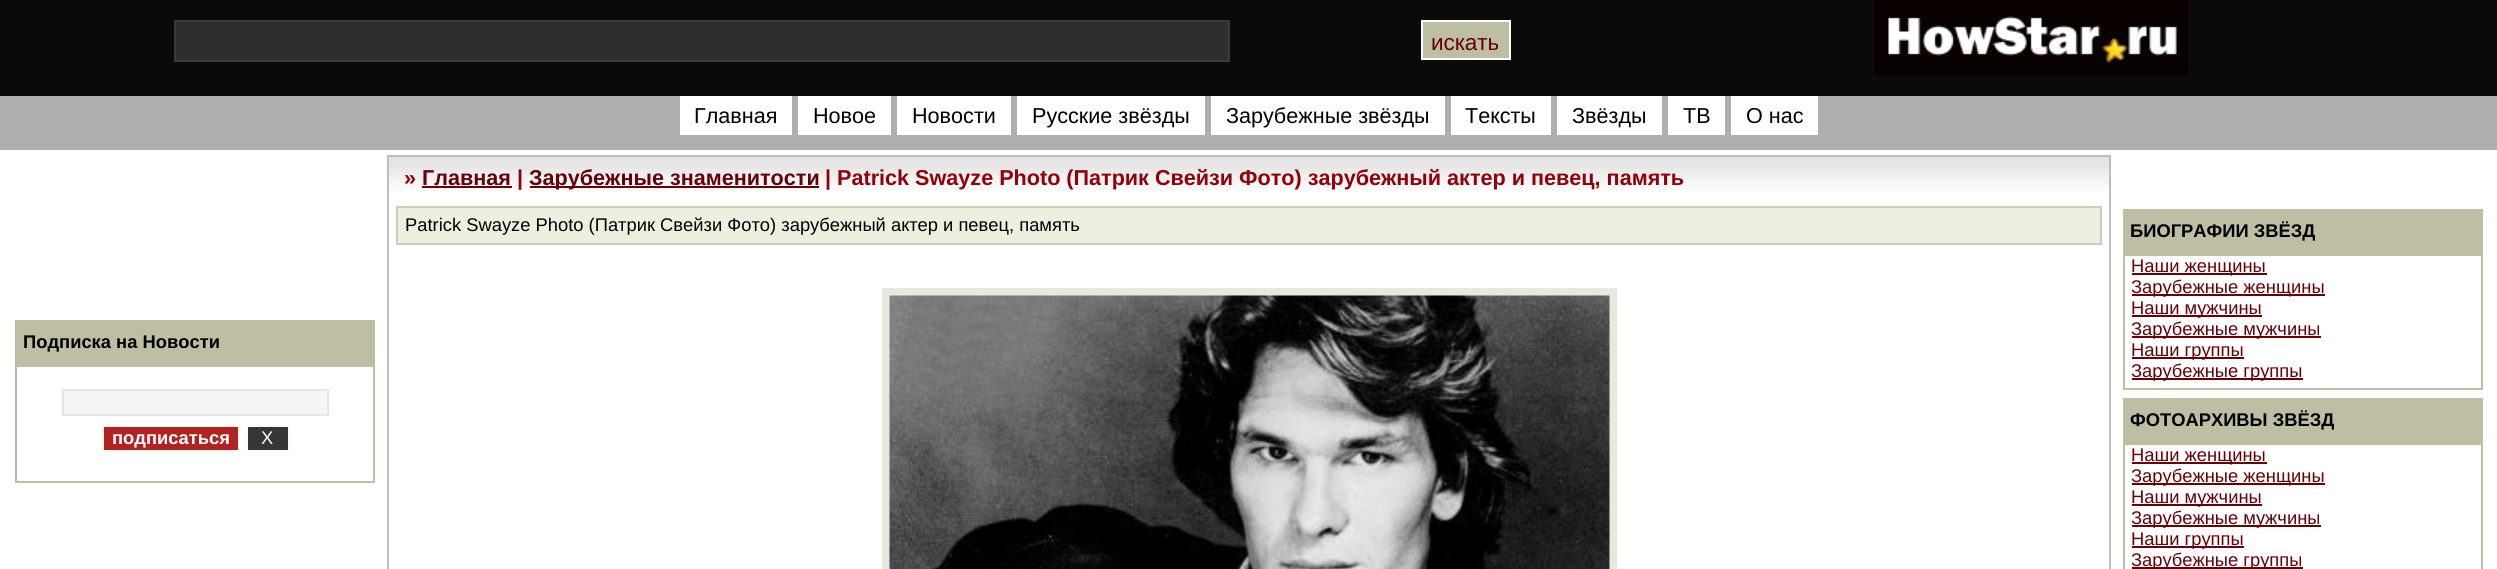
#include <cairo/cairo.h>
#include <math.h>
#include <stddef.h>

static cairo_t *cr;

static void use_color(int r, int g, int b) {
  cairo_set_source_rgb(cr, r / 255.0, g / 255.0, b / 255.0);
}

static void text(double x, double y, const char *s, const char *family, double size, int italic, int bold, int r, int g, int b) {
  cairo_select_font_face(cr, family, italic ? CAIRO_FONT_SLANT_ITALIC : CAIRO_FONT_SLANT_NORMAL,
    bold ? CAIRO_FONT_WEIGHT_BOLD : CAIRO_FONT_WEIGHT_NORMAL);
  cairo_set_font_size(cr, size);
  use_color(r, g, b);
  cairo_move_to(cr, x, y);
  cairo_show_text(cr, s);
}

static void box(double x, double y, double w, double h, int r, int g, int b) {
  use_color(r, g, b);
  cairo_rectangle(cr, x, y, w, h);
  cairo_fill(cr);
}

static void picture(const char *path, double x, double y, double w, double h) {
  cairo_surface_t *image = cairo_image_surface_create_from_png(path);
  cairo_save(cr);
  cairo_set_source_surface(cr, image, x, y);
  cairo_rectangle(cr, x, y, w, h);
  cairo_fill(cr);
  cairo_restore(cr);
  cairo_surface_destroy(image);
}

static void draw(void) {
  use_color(255, 255, 255);
  cairo_paint(cr);
  box(0, 0, 2497, 96, 10, 10, 10);
  use_color(46, 46, 46);
  cairo_rectangle(cr, 175, 21, 1054, 40);
  cairo_fill_preserve(cr);
  use_color(58, 58, 58);
  cairo_stroke(cr);
  use_color(190, 190, 163);
  cairo_rectangle(cr, 1422, 21, 88, 38);
  cairo_fill_preserve(cr);
  use_color(255, 255, 255);
  cairo_stroke(cr);
  picture("img_01.png", 1874, 0, 314, 75);
  box(0, 96, 2497, 54, 175, 175, 175);
  box(680, 96, 112, 39, 255, 255, 255);
  box(798, 96, 93, 39, 255, 255, 255);
  box(897, 96, 114, 39, 255, 255, 255);
  box(1017, 96, 188, 39, 255, 255, 255);
  box(1211, 96, 234, 39, 255, 255, 255);
  box(1451, 96, 100, 39, 255, 255, 255);
  box(1557, 96, 105, 39, 255, 255, 255);
  box(1668, 96, 57, 39, 255, 255, 255);
  box(1731, 96, 87, 39, 255, 255, 255);
  picture("img_02.png", 389, 157, 1720, 33);
  box(387, 155, 1724, 2, 190, 190, 190);
  box(2109, 155, 2, 414, 190, 190, 190);
  box(387, 155, 2, 414, 190, 190, 190);
  box(422, 186, 90, 2, 104, 0, 8);
  box(530, 186, 289, 2, 104, 0, 8);
  use_color(238, 238, 225);
  cairo_rectangle(cr, 397, 207, 1704, 37);
  cairo_fill_preserve(cr);
  use_color(206, 207, 182);
  cairo_stroke(cr);
  cairo_rectangle(cr, 886, 292, 727, 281);
  use_color(232, 232, 222);
  cairo_set_line_width(cr, 8);
  cairo_stroke(cr);
  picture("img_03.png", 889, 295, 721, 274);
  box(15, 320, 360, 45, 190, 190, 163);
  cairo_rectangle(cr, 16, 366, 358, 116);
  cairo_set_line_width(cr, 2);
  cairo_stroke(cr);
  use_color(245, 245, 245);
  cairo_rectangle(cr, 63, 390, 265, 25);
  cairo_fill_preserve(cr);
  use_color(231, 231, 223);
  cairo_stroke(cr);
  use_color(178, 34, 34);
  cairo_rectangle(cr, 103, 426, 136, 25);
  cairo_fill_preserve(cr);
  use_color(255, 250, 240);
  cairo_stroke(cr);
  use_color(54, 54, 54);
  cairo_rectangle(cr, 247, 426, 42, 25);
  cairo_fill_preserve(cr);
  use_color(255, 250, 240);
  cairo_stroke(cr);
  box(2123, 209, 360, 45, 190, 190, 163);
  cairo_rectangle(cr, 2124, 255, 358, 134);
  cairo_stroke(cr);
  box(2132, 273, 135, 2, 104, 0, 8);
  box(2132, 294, 193, 2, 104, 0, 8);
  box(2132, 315, 130, 2, 104, 0, 8);
  box(2132, 336, 189, 2, 104, 0, 8);
  box(2132, 357, 112, 2, 104, 0, 8);
  box(2132, 378, 171, 2, 104, 0, 8);
  box(2123, 398, 360, 45, 190, 190, 163);
  cairo_rectangle(cr, 2124, 444, 358, 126);
  cairo_stroke(cr);
  box(2132, 462, 135, 2, 104, 0, 8);
  box(2132, 483, 193, 2, 104, 0, 8);
  box(2132, 504, 130, 2, 104, 0, 8);
  box(2132, 525, 189, 2, 104, 0, 8);
  box(2132, 546, 112, 2, 104, 0, 8);
  box(2132, 567, 171, 2, 104, 0, 8);
  text(1431, 50, "искать", "Liberation Sans", 22.5, 0, 0, 104, 0, 8);
  text(694, 123, "Главная", "Liberation Sans", 21.6, 0, 0, 0, 0, 0);
  text(813, 123, "Новое", "Liberation Sans", 21.6, 0, 0, 0, 0, 0);
  text(912, 123, "Новости", "Liberation Sans", 21.6, 0, 0, 0, 0, 0);
  text(1032, 123, "Русские звёзды", "Liberation Sans", 21.6, 0, 0, 0, 0, 0);
  text(1226, 123, "Зарубежные звёзды", "Liberation Sans", 21.6, 0, 0, 0, 0, 0);
  text(1465, 123, "Тексты", "Liberation Sans", 21.6, 0, 0, 0, 0, 0);
  text(1572, 123, "Звёзды", "Liberation Sans", 21.6, 0, 0, 0, 0, 0);
  text(1683, 123, "ТВ", "Liberation Sans", 21.6, 0, 0, 0, 0, 0);
  text(1746, 123, "О нас", "Liberation Sans", 21.6, 0, 0, 0, 0, 0);
  text(404, 185, "»", "Liberation Sans", 21.6, 0, 1, 147, 0, 11);
  text(422, 185, "Главная", "Liberation Sans", 21.6, 0, 1, 104, 0, 8);
  text(517, 185, "|", "Liberation Sans", 21.6, 0, 1, 147, 0, 11);
  text(529, 185, "Зарубежные знаменитости", "Liberation Sans", 21.6, 0, 1, 104, 0, 8);
  text(825, 185, "| Patrick Swayze Photo (Патрик Свейзи Фото) зарубежный актер и певец, память", "Liberation Sans", 21.6, 0, 1, 147, 0, 11);
  text(405, 231, "Patrick Swayze Photo (Патрик Свейзи Фото) зарубежный актер и певец, память", "Liberation Sans", 18.35, 0, 0, 0, 0, 0);
  text(23, 348, "Подписка на Новости", "Liberation Sans", 18.35, 0, 1, 0, 0, 0);
  text(112, 444, "подписаться", "Liberation Sans", 18.35, 0, 1, 255, 255, 255);
  text(261, 444, "Х", "Liberation Sans", 18.35, 0, 0, 255, 255, 255);
  text(2130, 237, "БИОГРАФИИ ЗВЁЗД", "Liberation Sans", 18.35, 0, 1, 0, 0, 0);
  text(2131, 272, "Наши женщины", "Liberation Sans", 18.35, 0, 0, 104, 0, 8);
  text(2131, 293, "Зарубежные женщины", "Liberation Sans", 18.35, 0, 0, 104, 0, 8);
  text(2131, 314, "Наши мужчины", "Liberation Sans", 18.35, 0, 0, 104, 0, 8);
  text(2131, 335, "Зарубежные мужчины", "Liberation Sans", 18.35, 0, 0, 104, 0, 8);
  text(2131, 356, "Наши группы", "Liberation Sans", 18.35, 0, 0, 104, 0, 8);
  text(2131, 377, "Зарубежные группы", "Liberation Sans", 18.35, 0, 0, 104, 0, 8);
  text(2130, 426, "ФОТОАРХИВЫ ЗВЁЗД", "Liberation Sans", 18.35, 0, 1, 0, 0, 0);
  text(2131, 461, "Наши женщины", "Liberation Sans", 18.35, 0, 0, 104, 0, 8);
  text(2131, 482, "Зарубежные женщины", "Liberation Sans", 18.35, 0, 0, 104, 0, 8);
  text(2131, 503, "Наши мужчины", "Liberation Sans", 18.35, 0, 0, 104, 0, 8);
  text(2131, 524, "Зарубежные мужчины", "Liberation Sans", 18.35, 0, 0, 104, 0, 8);
  text(2131, 545, "Наши группы", "Liberation Sans", 18.35, 0, 0, 104, 0, 8);
  text(2131, 566, "Зарубежные группы", "Liberation Sans", 18.35, 0, 0, 104, 0, 8);
}

int main(void) {
  cairo_surface_t *surface = cairo_image_surface_create(CAIRO_FORMAT_RGB24, 2497, 569);
  cr = cairo_create(surface);
  cairo_font_options_t *options = cairo_font_options_create();
  cairo_font_options_set_hint_metrics(options, CAIRO_HINT_METRICS_OFF);
  cairo_font_options_set_hint_style(options, CAIRO_HINT_STYLE_NONE);
  cairo_set_font_options(cr, options);
  cairo_set_miter_limit(cr, 4);
  draw();
  cairo_surface_write_to_png(surface, "out.png");
  cairo_font_options_destroy(options);
  cairo_destroy(cr);
  cairo_surface_destroy(surface);
  return 0;
}
